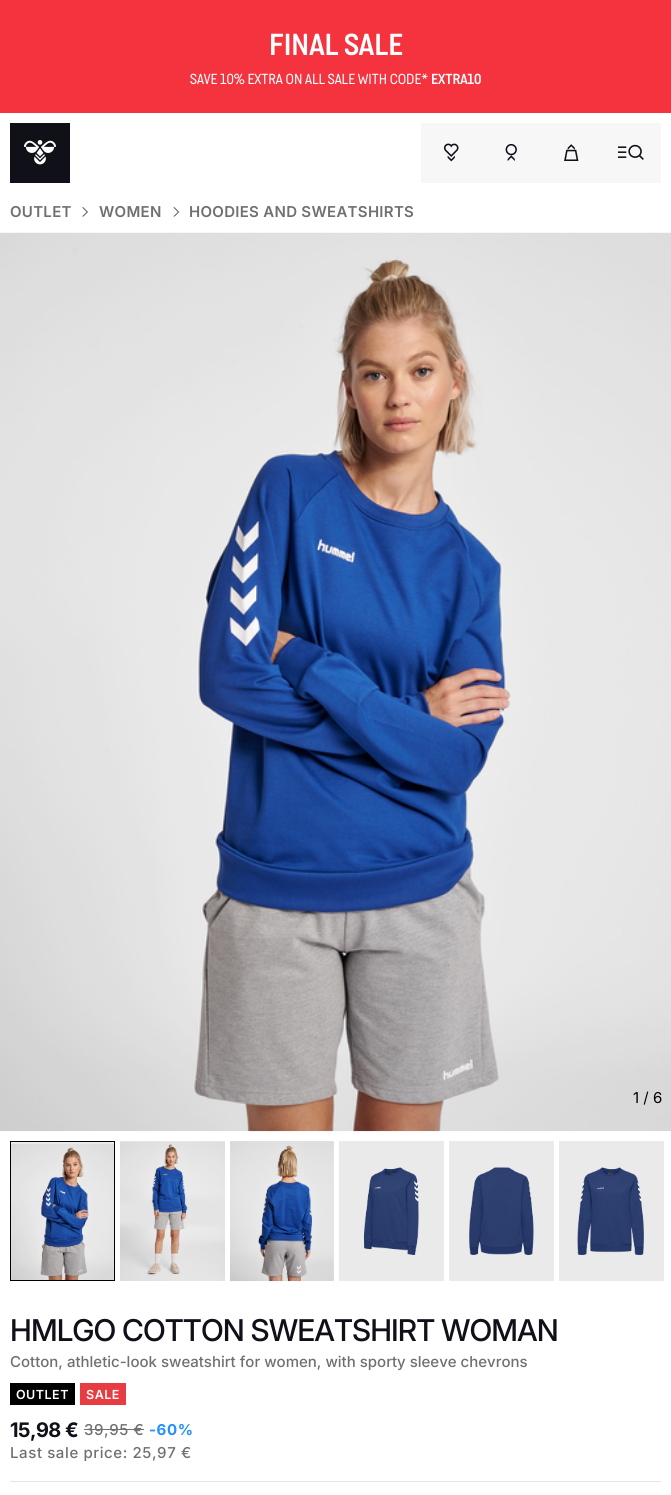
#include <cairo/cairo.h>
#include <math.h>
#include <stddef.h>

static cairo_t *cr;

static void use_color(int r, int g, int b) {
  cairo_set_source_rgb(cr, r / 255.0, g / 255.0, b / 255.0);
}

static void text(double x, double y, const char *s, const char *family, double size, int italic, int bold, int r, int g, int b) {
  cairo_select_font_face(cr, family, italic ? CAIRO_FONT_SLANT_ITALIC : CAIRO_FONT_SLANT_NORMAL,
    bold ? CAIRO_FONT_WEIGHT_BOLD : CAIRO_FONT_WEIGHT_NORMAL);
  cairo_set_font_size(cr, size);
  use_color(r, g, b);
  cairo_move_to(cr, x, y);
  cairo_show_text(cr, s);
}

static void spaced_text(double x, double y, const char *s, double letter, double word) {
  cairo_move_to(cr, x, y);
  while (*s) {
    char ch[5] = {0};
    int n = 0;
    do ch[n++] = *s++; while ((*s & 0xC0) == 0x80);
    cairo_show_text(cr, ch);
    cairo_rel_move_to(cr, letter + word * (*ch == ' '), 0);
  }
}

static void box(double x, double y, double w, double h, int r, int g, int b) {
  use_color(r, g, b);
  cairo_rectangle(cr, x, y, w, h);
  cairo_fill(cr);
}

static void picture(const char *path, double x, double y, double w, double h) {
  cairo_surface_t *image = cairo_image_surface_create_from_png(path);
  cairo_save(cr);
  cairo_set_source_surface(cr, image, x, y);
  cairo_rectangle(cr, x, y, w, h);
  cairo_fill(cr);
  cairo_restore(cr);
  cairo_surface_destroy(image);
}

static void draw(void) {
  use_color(255, 255, 255);
  cairo_paint(cr);
  box(0, 0, 671, 113, 245, 51, 63);
  box(10, 123, 60, 60, 15, 16, 24);
  picture("img_01.png", 24, 140, 32, 25);
  box(421, 123, 120, 60, 247, 247, 247);
  picture("img_02.png", 444, 143, 15, 19);
  picture("img_03.png", 505, 144, 12, 17);
  box(541, 123, 120, 60, 247, 247, 247);
  picture("img_04.png", 564, 144, 15, 17);
  picture("img_05.png", 618, 146, 9, 12);
  picture("img_06.png", 628, 144, 16, 16);
  picture("img_07.png", 82, 207, 6, 10);
  picture("img_08.png", 173, 207, 7, 10);
  picture("img_09.png", 0, 232, 671, 900);
  use_color(234, 234, 234);
  cairo_rectangle(cr, 10.5, 1141.5, 104, 139);
  cairo_fill_preserve(cr);
  use_color(0, 0, 0);
  cairo_set_line_width(cr, 1);
  cairo_stroke(cr);
  picture("img_10.png", 11, 1144, 103, 136);
  picture("img_11.png", 120, 1141, 105, 140);
  box(230, 1141, 104, 140, 234, 234, 234);
  picture("img_12.png", 230, 1141, 104, 141);
  box(339, 1141, 105, 140, 234, 234, 234);
  picture("img_13.png", 363, 1167, 56, 88);
  box(449, 1141, 105, 140, 234, 234, 234);
  picture("img_14.png", 469, 1167, 65, 88);
  box(559, 1141, 105, 140, 234, 234, 234);
  picture("img_15.png", 577, 1167, 67, 88);
  box(10, 1383, 65, 22, 0, 0, 0);
  box(80, 1383, 46, 22, 231, 61, 66);
  box(84, 1429, 60, 1, 112, 112, 112);
  box(10, 1481, 651, 1, 227, 227, 227);
  text(269, 55, "FINAL SALE", "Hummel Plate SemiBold", 31.25, 0, 0, 255, 255, 255);
  text(190, 84, "SAVE 10% EXTRA ON ALL SALE WITH CODE*", "Hummel Plate", 15, 0, 0, 255, 255, 255);
  text(431, 84, "EXTRA10", "Hummel Plate SemiBold", 15, 0, 0, 255, 255, 255);
  cairo_select_font_face(cr, "Inter SemiBold", CAIRO_FONT_SLANT_NORMAL, CAIRO_FONT_WEIGHT_NORMAL);
  use_color(112, 112, 112);
  spaced_text(10, 217, "OUTLET", 0.3, 0);
  spaced_text(99, 217, "WOMEN", 0.3, 0);
  spaced_text(189, 217, "HOODIES AND SWEATSHIRTS", 0.3, 0);
  text(633, 1103, "1 / 6", "Inter", 15, 0, 0, 0, 0, 0);
  cairo_select_font_face(cr, "Inter Medium", CAIRO_FONT_SLANT_NORMAL, CAIRO_FONT_WEIGHT_NORMAL);
  cairo_set_font_size(cr, 30);
  use_color(15, 16, 24);
  spaced_text(10, 1341, "HMLGO COTTON SWEATSHIRT WOMAN", -0.9, 0);
  text(10, 1367, "Cotton, athletic-look sweatshirt for women, with sporty sleeve chevrons", "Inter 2 Medium", 15, 0, 0, 112, 112, 112);
  cairo_select_font_face(cr, "Inter SemiBold", CAIRO_FONT_SLANT_NORMAL, CAIRO_FONT_WEIGHT_NORMAL);
  cairo_set_font_size(cr, 12.5);
  use_color(255, 255, 255);
  spaced_text(16, 1399, "OUTLET", 0.5, 0);
  spaced_text(86, 1399, "SALE", 0.5, 0);
  cairo_select_font_face(cr, "Inter", CAIRO_FONT_SLANT_NORMAL, CAIRO_FONT_WEIGHT_BOLD);
  cairo_set_font_size(cr, 20);
  use_color(15, 16, 24);
  spaced_text(10, 1437, "15,98 €", -0.5, 0);
  cairo_select_font_face(cr, "Inter 2 Medium", CAIRO_FONT_SLANT_NORMAL, CAIRO_FONT_WEIGHT_NORMAL);
  cairo_set_font_size(cr, 15);
  use_color(112, 112, 112);
  spaced_text(84, 1435, "39,95 €", 0.6, 0);
  cairo_select_font_face(cr, "Inter 2", CAIRO_FONT_SLANT_NORMAL, CAIRO_FONT_WEIGHT_BOLD);
  use_color(34, 145, 255);
  spaced_text(149, 1435, "-60%", 0.6, 0);
  cairo_select_font_face(cr, "Inter 2 Medium", CAIRO_FONT_SLANT_NORMAL, CAIRO_FONT_WEIGHT_NORMAL);
  use_color(112, 112, 112);
  spaced_text(10, 1458, "Last sale price: 25,97 €", 0.6, 0);
}

int main(void) {
  cairo_surface_t *surface = cairo_image_surface_create(CAIRO_FORMAT_RGB24, 671, 1495);
  cr = cairo_create(surface);
  cairo_font_options_t *options = cairo_font_options_create();
  cairo_font_options_set_hint_metrics(options, CAIRO_HINT_METRICS_OFF);
  cairo_font_options_set_hint_style(options, CAIRO_HINT_STYLE_NONE);
  cairo_set_font_options(cr, options);
  cairo_set_miter_limit(cr, 4);
  draw();
  cairo_surface_write_to_png(surface, "out.png");
  cairo_font_options_destroy(options);
  cairo_destroy(cr);
  cairo_surface_destroy(surface);
  return 0;
}
